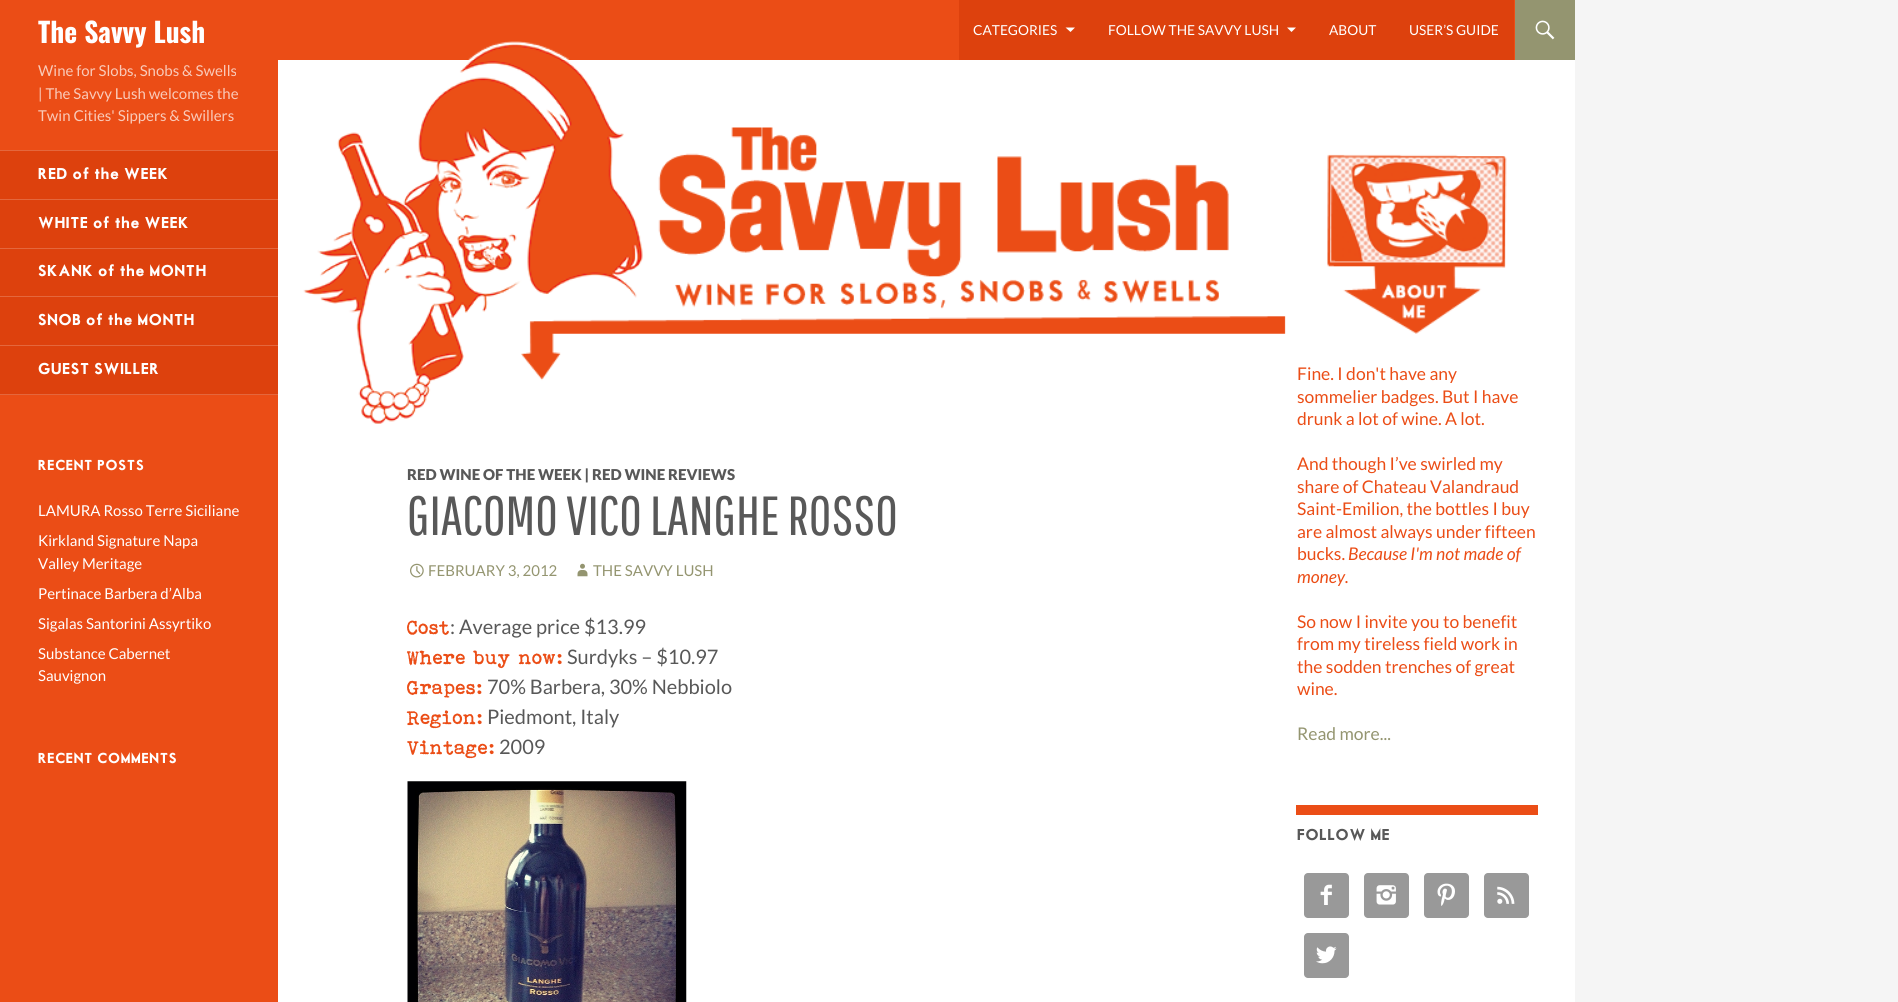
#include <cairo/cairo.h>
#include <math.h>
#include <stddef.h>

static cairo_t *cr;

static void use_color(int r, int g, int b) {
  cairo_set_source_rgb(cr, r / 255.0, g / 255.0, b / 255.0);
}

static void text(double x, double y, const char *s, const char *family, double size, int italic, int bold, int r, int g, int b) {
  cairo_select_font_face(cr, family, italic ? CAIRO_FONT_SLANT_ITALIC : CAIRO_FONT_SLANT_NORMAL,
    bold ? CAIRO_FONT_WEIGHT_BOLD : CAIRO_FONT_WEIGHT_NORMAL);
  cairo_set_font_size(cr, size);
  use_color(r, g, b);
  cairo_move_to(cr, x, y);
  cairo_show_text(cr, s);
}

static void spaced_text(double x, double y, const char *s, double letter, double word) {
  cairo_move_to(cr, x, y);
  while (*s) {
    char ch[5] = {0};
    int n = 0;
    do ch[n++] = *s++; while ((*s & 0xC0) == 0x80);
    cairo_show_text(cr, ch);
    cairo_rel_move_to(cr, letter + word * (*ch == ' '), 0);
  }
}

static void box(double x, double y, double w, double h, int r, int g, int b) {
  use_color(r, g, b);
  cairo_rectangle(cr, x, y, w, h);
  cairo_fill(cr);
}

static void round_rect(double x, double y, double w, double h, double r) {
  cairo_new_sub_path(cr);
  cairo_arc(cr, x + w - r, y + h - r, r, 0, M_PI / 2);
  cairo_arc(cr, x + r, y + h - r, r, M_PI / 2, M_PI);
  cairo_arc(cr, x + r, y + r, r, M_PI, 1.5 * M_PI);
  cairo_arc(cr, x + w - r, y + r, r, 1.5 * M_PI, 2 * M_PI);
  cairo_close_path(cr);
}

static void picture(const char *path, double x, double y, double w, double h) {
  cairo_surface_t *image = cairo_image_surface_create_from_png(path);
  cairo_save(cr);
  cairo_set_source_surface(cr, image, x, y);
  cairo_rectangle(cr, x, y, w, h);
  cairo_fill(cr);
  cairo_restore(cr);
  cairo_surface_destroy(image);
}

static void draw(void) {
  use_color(245, 245, 245);
  cairo_paint(cr);
  box(278, 60, 1297, 942, 255, 255, 255);
  box(0, 0, 1515, 60, 235, 77, 22);
  picture("img_01.png", 468, 41, 102, 19);
  box(959, 0, 555, 60, 221, 65, 13);
  use_color(255, 255, 255);
  cairo_new_path(cr);
  cairo_move_to(cr, 1065.5, 27.5);
  cairo_line_to(cr, 1075, 27.5);
  cairo_line_to(cr, 1070.5, 32);
  cairo_close_path(cr);
  cairo_fill(cr);
  cairo_new_path(cr);
  cairo_move_to(cr, 1287, 27.5);
  cairo_line_to(cr, 1296, 27.5);
  cairo_line_to(cr, 1291.5, 32);
  cairo_close_path(cr);
  cairo_fill(cr);
  box(1515, 0, 60, 60, 148, 149, 112);
  picture("img_02.png", 1535, 20, 20, 20);
  box(0, 60, 278, 942, 235, 77, 22);
  picture("img_03.png", 303, 60, 983, 364);
  box(0, 151, 278, 243, 221, 65, 13);
  box(0, 394, 278, 1, 228, 103, 61);
  box(0, 150, 278, 1, 228, 103, 61);
  box(0, 199, 278, 1, 228, 103, 61);
  box(0, 248, 278, 1, 228, 103, 61);
  box(0, 296, 278, 1, 228, 103, 61);
  box(0, 345, 278, 1, 228, 103, 61);
  picture("img_04.png", 410, 563, 14, 15);
  picture("img_05.png", 577, 563, 11, 14);
  picture("img_06.png", 407, 781, 280, 221);
  picture("img_07.png", 1327, 154, 180, 180);
  box(1296, 805, 242, 10, 235, 77, 22);
  use_color(153, 153, 153);
  round_rect(1304, 873, 45, 45, 4);
  cairo_fill(cr);
  picture("img_08.png", 1320, 884, 12, 21);
  round_rect(1364, 873, 45, 45, 4);
  cairo_fill(cr);
  picture("img_09.png", 1376, 885, 20, 20);
  round_rect(1424, 873, 45, 45, 4);
  cairo_fill(cr);
  picture("img_10.png", 1437, 883, 18, 23);
  round_rect(1484, 873, 45, 45, 4);
  cairo_fill(cr);
  picture("img_11.png", 1497, 886, 18, 18);
  round_rect(1304, 933, 45, 45, 4);
  cairo_fill(cr);
  picture("img_12.png", 1316, 946, 21, 18);
  cairo_save(cr);
  cairo_rectangle(cr, 38, 0, 167, 60);
  cairo_clip(cr);
  text(38, 43, "The Savvy Lush", "Oswald", 27.5, 0, 1, 255, 255, 255);
  cairo_restore(cr);
  text(973, 35, "CATEGORIES", "Lato", 13.75, 0, 0, 255, 255, 255);
  text(1108, 35, "FOLLOW THE SAVVY LUSH", "Lato", 13.75, 0, 0, 255, 255, 255);
  text(1329, 35, "ABOUT", "Lato", 13.75, 0, 0, 255, 255, 255);
  text(1409, 35, "USER’S GUIDE", "Lato", 13.75, 0, 0, 255, 255, 255);
  text(38, 76, "Wine for Slobs, Snobs & Swells", "Lato", 15, 0, 0, 249, 202, 185);
  text(38, 99, "| The Savvy Lush welcomes the", "Lato", 15, 0, 0, 249, 202, 185);
  text(38, 121, "Twin Cities' Sippers & Swillers", "Lato", 15, 0, 0, 249, 202, 185);
  cairo_select_font_face(cr, "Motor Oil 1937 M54", CAIRO_FONT_SLANT_NORMAL, CAIRO_FONT_WEIGHT_NORMAL);
  use_color(255, 255, 255);
  spaced_text(38, 179, "RED of the WEEK", 0.75, 0);
  spaced_text(38, 228, "WHITE of the WEEK", 0.75, 0);
  spaced_text(38, 276, "SKANK of the MONTH", 0.75, 0);
  spaced_text(38, 325, "SNOB of the MONTH", 0.75, 0);
  spaced_text(38, 374, "GUEST SWILLER", 0.75, 0);
  cairo_set_font_size(cr, 13.75);
  spaced_text(38, 470, "RECENT POSTS", 0.75, 0);
  text(38, 516, "LAMURA Rosso Terre Siciliane", "Lato", 15, 0, 0, 255, 255, 255);
  text(38, 546, "Kirkland Signature Napa", "Lato", 15, 0, 0, 255, 255, 255);
  text(38, 569, "Valley Meritage", "Lato", 15, 0, 0, 255, 255, 255);
  text(38, 599, "Pertinace Barbera d’Alba", "Lato", 15, 0, 0, 255, 255, 255);
  text(38, 629, "Sigalas Santorini Assyrtiko", "Lato", 15, 0, 0, 255, 255, 255);
  text(38, 659, "Substance Cabernet", "Lato", 15, 0, 0, 255, 255, 255);
  text(38, 681, "Sauvignon", "Lato", 15, 0, 0, 255, 255, 255);
  cairo_select_font_face(cr, "Motor Oil 1937 M54", CAIRO_FONT_SLANT_NORMAL, CAIRO_FONT_WEIGHT_NORMAL);
  cairo_set_font_size(cr, 13.75);
  spaced_text(38, 763, "RECENT COMMENTS", 0.75, 0);
  text(407, 480, "RED WINE OF THE WEEK | RED WINE REVIEWS", "Lato Black", 15, 0, 0, 88, 88, 88);
  text(407, 535, "GIACOMO VICO LANGHE ROSSO", "Pathway Gothic One", 55, 0, 0, 88, 88, 88);
  text(428, 576, "FEBRUARY 3, 2012", "Lato", 15, 0, 0, 148, 149, 112);
  text(593, 576, "THE SAVVY LUSH", "Lato", 15, 0, 0, 148, 149, 112);
  text(407, 634, "Cost", "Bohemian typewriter", 20, 0, 0, 235, 77, 22);
  text(450, 634, ": Average price $13.99", "Lato", 20, 0, 0, 88, 88, 88);
  text(407, 664, "Where buy now:", "Bohemian typewriter", 20, 0, 0, 235, 77, 22);
  text(567, 664, "Surdyks – $10.97", "Lato", 20, 0, 0, 88, 88, 88);
  text(407, 694, "Grapes:", "Bohemian typewriter", 20, 0, 0, 235, 77, 22);
  text(487, 694, "70% Barbera, 30% Nebbiolo", "Lato", 20, 0, 0, 88, 88, 88);
  text(407, 724, "Region:", "Bohemian typewriter", 20, 0, 0, 235, 77, 22);
  text(487, 724, "Piedmont, Italy", "Lato", 20, 0, 0, 88, 88, 88);
  text(407, 754, "Vintage:", "Bohemian typewriter", 20, 0, 0, 235, 77, 22);
  text(499, 754, "2009", "Lato", 20, 0, 0, 88, 88, 88);
  text(1297, 380, "Fine. I don't have any", "Lato", 17.5, 0, 0, 235, 77, 22);
  text(1297, 403, "sommelier badges. But I have", "Lato", 17.5, 0, 0, 235, 77, 22);
  text(1297, 425, "drunk a lot of wine. A lot.", "Lato", 17.5, 0, 0, 235, 77, 22);
  text(1297, 470, "And though I’ve swirled my", "Lato", 17.5, 0, 0, 235, 77, 22);
  text(1297, 493, "share of Chateau Valandraud", "Lato", 17.5, 0, 0, 235, 77, 22);
  text(1297, 515, "Saint-Emilion, the bottles I buy", "Lato", 17.5, 0, 0, 235, 77, 22);
  text(1297, 538, "are almost always under fifteen", "Lato", 17.5, 0, 0, 235, 77, 22);
  text(1297, 560, "bucks.", "Lato", 17.5, 0, 0, 235, 77, 22);
  text(1348, 560, "Because I'm not made of", "Lato", 17.5, 1, 0, 235, 77, 22);
  text(1297, 583, "money.", "Lato", 17.5, 1, 0, 235, 77, 22);
  text(1297, 628, "So now I invite you to benefit", "Lato", 17.5, 0, 0, 235, 77, 22);
  text(1297, 650, "from my tireless field work in", "Lato", 17.5, 0, 0, 235, 77, 22);
  text(1297, 673, "the sodden trenches of great", "Lato", 17.5, 0, 0, 235, 77, 22);
  text(1297, 695, "wine.", "Lato", 17.5, 0, 0, 235, 77, 22);
  text(1297, 740, "Read more...", "Lato", 17.5, 0, 0, 148, 149, 112);
  cairo_select_font_face(cr, "Motor Oil 1937 M54", CAIRO_FONT_SLANT_NORMAL, CAIRO_FONT_WEIGHT_NORMAL);
  cairo_set_font_size(cr, 15);
  use_color(88, 88, 88);
  spaced_text(1297, 840, "FOLLOW ME", 0.75, 0);
}

int main(void) {
  cairo_surface_t *surface = cairo_image_surface_create(CAIRO_FORMAT_RGB24, 1898, 1002);
  cr = cairo_create(surface);
  cairo_font_options_t *options = cairo_font_options_create();
  cairo_font_options_set_hint_metrics(options, CAIRO_HINT_METRICS_OFF);
  cairo_font_options_set_hint_style(options, CAIRO_HINT_STYLE_NONE);
  cairo_set_font_options(cr, options);
  cairo_set_miter_limit(cr, 4);
  draw();
  cairo_surface_write_to_png(surface, "out.png");
  cairo_font_options_destroy(options);
  cairo_destroy(cr);
  cairo_surface_destroy(surface);
  return 0;
}
